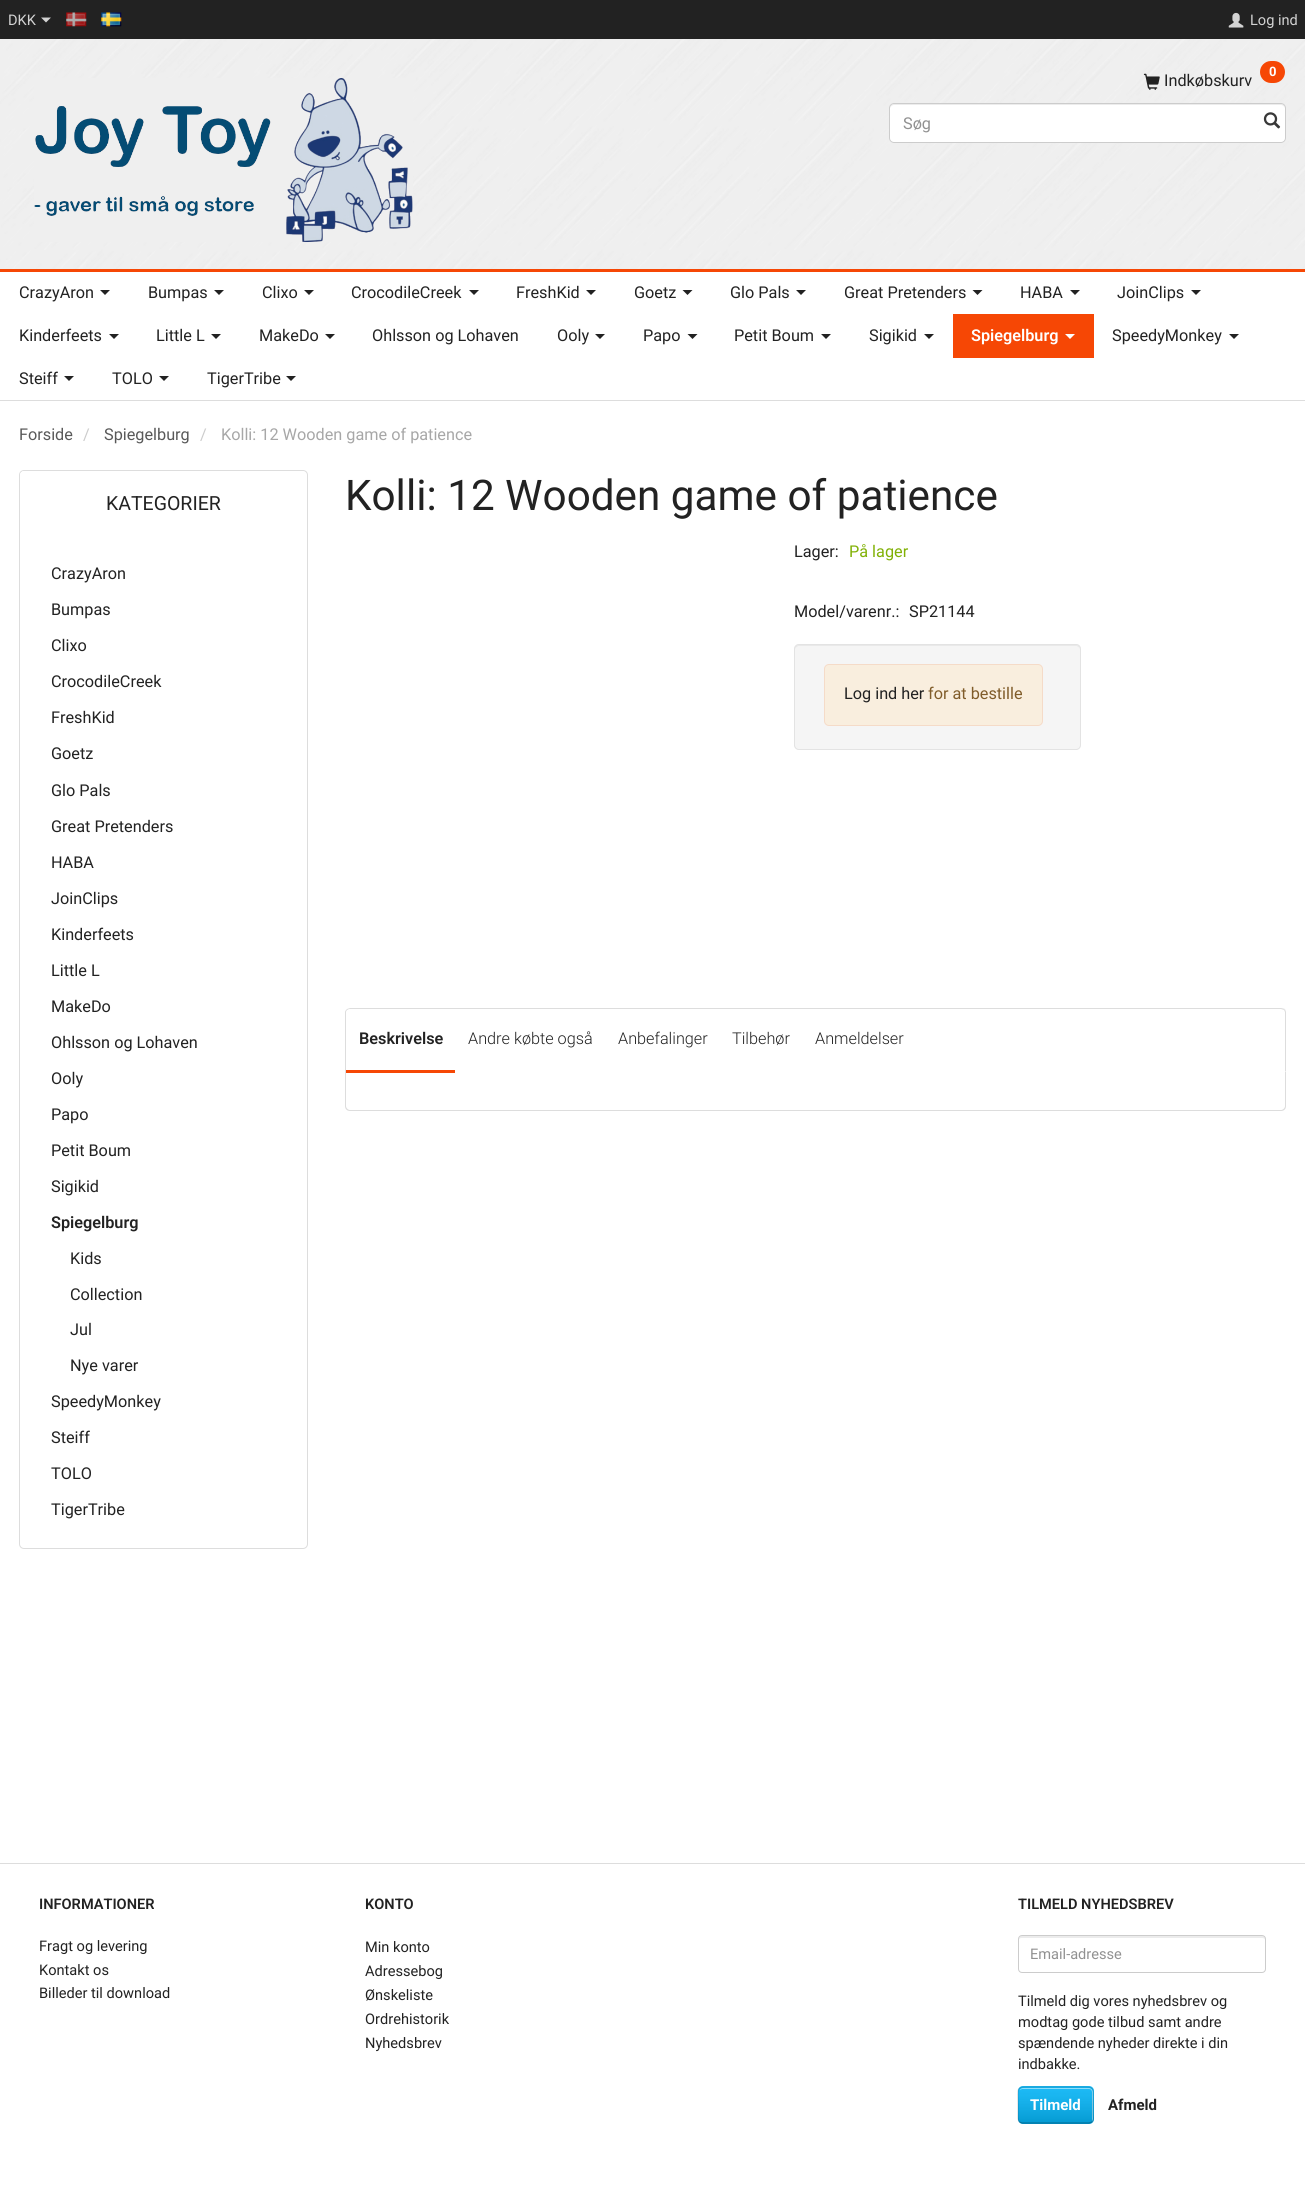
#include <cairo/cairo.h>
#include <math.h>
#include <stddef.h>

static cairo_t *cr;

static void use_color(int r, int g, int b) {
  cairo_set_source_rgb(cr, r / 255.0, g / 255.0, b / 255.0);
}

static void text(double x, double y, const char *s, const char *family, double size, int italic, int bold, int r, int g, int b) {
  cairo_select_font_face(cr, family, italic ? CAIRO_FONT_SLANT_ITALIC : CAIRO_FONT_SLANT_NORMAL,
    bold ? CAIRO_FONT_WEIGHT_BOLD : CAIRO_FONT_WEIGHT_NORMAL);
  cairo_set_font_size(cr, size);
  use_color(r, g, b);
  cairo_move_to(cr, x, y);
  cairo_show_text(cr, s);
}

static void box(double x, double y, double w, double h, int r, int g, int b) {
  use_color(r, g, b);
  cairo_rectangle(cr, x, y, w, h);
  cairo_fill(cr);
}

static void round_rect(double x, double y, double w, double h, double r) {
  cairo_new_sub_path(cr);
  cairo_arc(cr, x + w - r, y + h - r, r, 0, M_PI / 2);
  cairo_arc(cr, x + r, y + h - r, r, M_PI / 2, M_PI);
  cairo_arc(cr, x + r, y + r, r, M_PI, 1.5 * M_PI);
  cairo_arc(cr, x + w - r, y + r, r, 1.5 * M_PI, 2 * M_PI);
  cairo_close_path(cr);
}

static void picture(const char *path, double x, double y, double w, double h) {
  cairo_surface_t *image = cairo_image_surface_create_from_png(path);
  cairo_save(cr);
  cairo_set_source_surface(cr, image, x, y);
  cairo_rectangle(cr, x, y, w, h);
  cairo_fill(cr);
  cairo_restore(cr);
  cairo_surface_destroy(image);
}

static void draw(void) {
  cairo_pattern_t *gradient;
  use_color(255, 255, 255);
  cairo_paint(cr);
  picture("img_01.png", 0, 39, 1305, 230);
  box(0, 0, 1305, 39, 34, 34, 34);
  use_color(211, 211, 211);
  cairo_new_path(cr);
  cairo_move_to(cr, 41, 17.5);
  cairo_line_to(cr, 51, 17.5);
  cairo_line_to(cr, 46, 22.5);
  cairo_close_path(cr);
  cairo_fill(cr);
  picture("img_02.png", 66, 12, 21, 15);
  picture("img_03.png", 101, 12, 21, 15);
  picture("img_04.png", 1228, 12, 16, 16);
  picture("img_05.png", 34, 78, 379, 164);
  use_color(246, 71, 5);
  round_rect(1260, 61, 25, 22, 11);
  cairo_fill(cr);
  picture("img_06.png", 1143, 73, 17, 17);
  use_color(255, 255, 255);
  round_rect(889, 103, 397, 40, 5);
  cairo_fill(cr);
  use_color(236, 236, 236);
  cairo_new_path(cr);
  cairo_move_to(cr, 894, 105);
  cairo_line_to(cr, 1281, 105);
  cairo_curve_to(cr, 1283, 105, 1285, 107, 1285, 109);
  cairo_curve_to(cr, 1285, 106, 1284, 104, 1281, 104);
  cairo_line_to(cr, 894, 104);
  cairo_curve_to(cr, 891, 104, 890, 106, 890, 109);
  cairo_curve_to(cr, 890, 107, 892, 105, 894, 105);
  cairo_close_path(cr);
  cairo_fill(cr);
  round_rect(889.5, 103.5, 396, 39, 4.5);
  use_color(204, 204, 204);
  cairo_set_line_width(cr, 1);
  cairo_stroke(cr);
  picture("img_07.png", 1263, 112, 18, 17);
  box(0, 269, 1305, 3, 246, 71, 5);
  use_color(34, 34, 34);
  cairo_new_path(cr);
  cairo_move_to(cr, 100, 290);
  cairo_line_to(cr, 110, 290);
  cairo_line_to(cr, 105, 295);
  cairo_close_path(cr);
  cairo_fill(cr);
  cairo_new_path(cr);
  cairo_move_to(cr, 214, 290);
  cairo_line_to(cr, 224, 290);
  cairo_line_to(cr, 219, 295);
  cairo_close_path(cr);
  cairo_fill(cr);
  cairo_new_path(cr);
  cairo_move_to(cr, 304, 290);
  cairo_line_to(cr, 314, 290);
  cairo_line_to(cr, 309, 295);
  cairo_close_path(cr);
  cairo_fill(cr);
  cairo_new_path(cr);
  cairo_move_to(cr, 469, 290);
  cairo_line_to(cr, 479, 290);
  cairo_line_to(cr, 474, 295);
  cairo_close_path(cr);
  cairo_fill(cr);
  cairo_new_path(cr);
  cairo_move_to(cr, 586, 290);
  cairo_line_to(cr, 596, 290);
  cairo_line_to(cr, 591, 295);
  cairo_close_path(cr);
  cairo_fill(cr);
  cairo_new_path(cr);
  cairo_move_to(cr, 682.5, 290);
  cairo_line_to(cr, 692.5, 290);
  cairo_line_to(cr, 687.5, 295);
  cairo_close_path(cr);
  cairo_fill(cr);
  cairo_new_path(cr);
  cairo_move_to(cr, 796, 290);
  cairo_line_to(cr, 806, 290);
  cairo_line_to(cr, 801, 295);
  cairo_close_path(cr);
  cairo_fill(cr);
  cairo_new_path(cr);
  cairo_move_to(cr, 972.5, 290);
  cairo_line_to(cr, 982.5, 290);
  cairo_line_to(cr, 977.5, 295);
  cairo_close_path(cr);
  cairo_fill(cr);
  cairo_new_path(cr);
  cairo_move_to(cr, 1070, 290);
  cairo_line_to(cr, 1080, 290);
  cairo_line_to(cr, 1075, 295);
  cairo_close_path(cr);
  cairo_fill(cr);
  cairo_new_path(cr);
  cairo_move_to(cr, 1191, 290);
  cairo_line_to(cr, 1201, 290);
  cairo_line_to(cr, 1196, 295);
  cairo_close_path(cr);
  cairo_fill(cr);
  cairo_new_path(cr);
  cairo_move_to(cr, 109, 334);
  cairo_line_to(cr, 119, 334);
  cairo_line_to(cr, 114, 339);
  cairo_close_path(cr);
  cairo_fill(cr);
  cairo_new_path(cr);
  cairo_move_to(cr, 211, 334);
  cairo_line_to(cr, 221, 334);
  cairo_line_to(cr, 216, 339);
  cairo_close_path(cr);
  cairo_fill(cr);
  cairo_new_path(cr);
  cairo_move_to(cr, 325, 334);
  cairo_line_to(cr, 335, 334);
  cairo_line_to(cr, 330, 339);
  cairo_close_path(cr);
  cairo_fill(cr);
  cairo_new_path(cr);
  cairo_move_to(cr, 595, 334);
  cairo_line_to(cr, 605, 334);
  cairo_line_to(cr, 600, 339);
  cairo_close_path(cr);
  cairo_fill(cr);
  cairo_new_path(cr);
  cairo_move_to(cr, 687.5, 334);
  cairo_line_to(cr, 697.5, 334);
  cairo_line_to(cr, 692.5, 339);
  cairo_close_path(cr);
  cairo_fill(cr);
  cairo_new_path(cr);
  cairo_move_to(cr, 821, 334);
  cairo_line_to(cr, 831, 334);
  cairo_line_to(cr, 826, 339);
  cairo_close_path(cr);
  cairo_fill(cr);
  cairo_new_path(cr);
  cairo_move_to(cr, 924, 334);
  cairo_line_to(cr, 934, 334);
  cairo_line_to(cr, 929, 339);
  cairo_close_path(cr);
  cairo_fill(cr);
  box(953, 314, 141, 44, 246, 71, 5);
  use_color(255, 255, 255);
  cairo_new_path(cr);
  cairo_move_to(cr, 1065, 334);
  cairo_line_to(cr, 1075, 334);
  cairo_line_to(cr, 1070, 339);
  cairo_close_path(cr);
  cairo_fill(cr);
  use_color(34, 34, 34);
  cairo_new_path(cr);
  cairo_move_to(cr, 1229, 334);
  cairo_line_to(cr, 1239, 334);
  cairo_line_to(cr, 1234, 339);
  cairo_close_path(cr);
  cairo_fill(cr);
  cairo_new_path(cr);
  cairo_move_to(cr, 64, 376);
  cairo_line_to(cr, 74, 376);
  cairo_line_to(cr, 69, 381);
  cairo_close_path(cr);
  cairo_fill(cr);
  cairo_new_path(cr);
  cairo_move_to(cr, 159, 376);
  cairo_line_to(cr, 169, 376);
  cairo_line_to(cr, 164, 381);
  cairo_close_path(cr);
  cairo_fill(cr);
  cairo_new_path(cr);
  cairo_move_to(cr, 286, 376);
  cairo_line_to(cr, 296, 376);
  cairo_line_to(cr, 291, 381);
  cairo_close_path(cr);
  cairo_fill(cr);
  box(0, 400, 1305, 1, 221, 221, 221);
  round_rect(19.5, 470.5, 288, 1078, 4.5);
  cairo_stroke(cr);
  use_color(255, 255, 255);
  cairo_new_path(cr);
  cairo_move_to(cr, 24, 471);
  cairo_line_to(cr, 302, 471);
  cairo_curve_to(cr, 304, 471, 306, 473, 306, 475);
  cairo_line_to(cr, 306, 538);
  cairo_line_to(cr, 20, 538);
  cairo_line_to(cr, 20, 475);
  cairo_curve_to(cr, 20, 473, 22, 471, 24, 471);
  cairo_close_path(cr);
  cairo_fill(cr);
  use_color(245, 245, 245);
  round_rect(794, 644, 287, 106, 5);
  cairo_fill(cr);
  use_color(233, 233, 233);
  cairo_new_path(cr);
  cairo_move_to(cr, 799, 646);
  cairo_line_to(cr, 1076, 646);
  cairo_curve_to(cr, 1078, 646, 1080, 648, 1080, 650);
  cairo_curve_to(cr, 1080, 647, 1079, 645, 1076, 645);
  cairo_line_to(cr, 799, 645);
  cairo_curve_to(cr, 796, 645, 795, 647, 795, 650);
  cairo_curve_to(cr, 795, 648, 797, 646, 799, 646);
  cairo_close_path(cr);
  cairo_fill(cr);
  round_rect(794.5, 644.5, 286, 105, 4.5);
  use_color(227, 227, 227);
  cairo_stroke(cr);
  use_color(249, 238, 222);
  round_rect(824.5, 664.5, 218, 61, 4.5);
  cairo_fill_preserve(cr);
  use_color(245, 219, 200);
  cairo_stroke(cr);
  use_color(221, 221, 221);
  cairo_new_path(cr);
  cairo_move_to(cr, 350, 1008);
  cairo_line_to(cr, 347, 1009);
  cairo_line_to(cr, 347, 1010);
  cairo_line_to(cr, 350, 1009);
  cairo_line_to(cr, 1281, 1009);
  cairo_line_to(cr, 1284, 1010);
  cairo_line_to(cr, 1285, 1009);
  cairo_line_to(cr, 1281, 1008);
  cairo_close_path(cr);
  cairo_fill(cr);
  cairo_new_path(cr);
  cairo_move_to(cr, 1285, 1071);
  cairo_line_to(cr, 1286, 1072);
  cairo_line_to(cr, 1286, 1012);
  cairo_line_to(cr, 1285, 1009);
  cairo_line_to(cr, 1284, 1010);
  cairo_line_to(cr, 1285, 1012);
  cairo_close_path(cr);
  cairo_fill(cr);
  cairo_new_path(cr);
  cairo_move_to(cr, 345, 1012);
  cairo_line_to(cr, 345, 1072);
  cairo_line_to(cr, 346, 1072);
  cairo_line_to(cr, 346, 1071);
  cairo_line_to(cr, 346, 1012);
  cairo_line_to(cr, 347, 1010);
  cairo_line_to(cr, 347, 1009);
  cairo_curve_to(cr, 346, 1010, 345, 1011, 345, 1012);
  cairo_close_path(cr);
  cairo_fill(cr);
  cairo_set_fill_rule(cr, CAIRO_FILL_RULE_EVEN_ODD);
  cairo_new_path(cr);
  cairo_move_to(cr, 345, 1072);
  cairo_line_to(cr, 1286, 1072);
  cairo_line_to(cr, 1286, 1106);
  cairo_curve_to(cr, 1286, 1109, 1284, 1111, 1281, 1111);
  cairo_line_to(cr, 350, 1111);
  cairo_curve_to(cr, 347, 1111, 345, 1109, 345, 1106);
  cairo_close_path(cr);
  cairo_move_to(cr, 346, 1072);
  cairo_line_to(cr, 1285, 1072);
  cairo_line_to(cr, 1285, 1106);
  cairo_curve_to(cr, 1285, 1108, 1283, 1110, 1281, 1110);
  cairo_line_to(cr, 350, 1110);
  cairo_curve_to(cr, 348, 1110, 346, 1108, 346, 1106);
  cairo_close_path(cr);
  cairo_fill(cr);
  use_color(255, 255, 255);
  cairo_new_path(cr);
  cairo_move_to(cr, 351, 1009);
  cairo_line_to(cr, 455, 1009);
  cairo_line_to(cr, 455, 1073);
  cairo_line_to(cr, 346, 1073);
  cairo_line_to(cr, 346, 1014);
  cairo_curve_to(cr, 346, 1011, 348, 1009, 351, 1009);
  cairo_close_path(cr);
  cairo_fill(cr);
  box(346, 1070, 109, 3, 246, 71, 5);
  box(0, 1863, 1305, 1, 221, 221, 221);
  use_color(236, 236, 236);
  cairo_set_fill_rule(cr, CAIRO_FILL_RULE_WINDING);
  cairo_new_path(cr);
  cairo_move_to(cr, 1021, 1938);
  cairo_line_to(cr, 1262, 1938);
  cairo_curve_to(cr, 1264, 1938, 1265, 1939, 1265, 1940);
  cairo_curve_to(cr, 1265, 1938, 1265, 1936, 1262, 1936);
  cairo_line_to(cr, 1021, 1936);
  cairo_curve_to(cr, 1019, 1937, 1019, 1939, 1019, 1940);
  cairo_curve_to(cr, 1019, 1939, 1020, 1938, 1021, 1938);
  cairo_close_path(cr);
  cairo_fill(cr);
  round_rect(1018.5, 1935.5, 247, 37, 3.5);
  use_color(204, 204, 204);
  cairo_stroke(cr);
  use_color(5, 180, 246);
  round_rect(1018, 2086, 76, 38, 5);
  cairo_fill(cr);
  gradient = cairo_pattern_create_linear(1056, 2086, 1056, 2124);
  cairo_pattern_add_color_stop_rgba(gradient, 0, 1, 1, 1, 0.1);
  cairo_pattern_add_color_stop_rgba(gradient, 1, 0, 0, 0, 0.15);
  cairo_set_source(cr, gradient);
  cairo_pattern_destroy(gradient);
  round_rect(1018, 2086, 76, 38, 5);
  cairo_fill(cr);
  cairo_set_source_rgba(cr, 1, 1, 1, 0.5);
  cairo_new_path(cr);
  cairo_move_to(cr, 1022, 2089);
  cairo_line_to(cr, 1089, 2089);
  cairo_curve_to(cr, 1093, 2089, 1092, 2094, 1092, 2097);
  cairo_line_to(cr, 1092, 2122);
  cairo_curve_to(cr, 1092, 2121, 1093, 2120, 1093, 2119);
  cairo_line_to(cr, 1093, 2092);
  cairo_curve_to(cr, 1093, 2090, 1091, 2088, 1089, 2088);
  cairo_line_to(cr, 1023, 2088);
  cairo_curve_to(cr, 1022, 2088, 1020, 2089, 1020, 2090);
  cairo_close_path(cr);
  cairo_fill(cr);
  cairo_new_path(cr);
  cairo_move_to(cr, 1092, 2122);
  cairo_line_to(cr, 1089, 2123);
  cairo_line_to(cr, 1022, 2123);
  cairo_line_to(cr, 1019.5, 2122);
  cairo_set_source_rgba(cr, 0, 0, 0, 0.25);
  cairo_set_line_width(cr, 1.2);
  cairo_stroke(cr);
  cairo_new_path(cr);
  cairo_move_to(cr, 1019.5, 2122);
  cairo_curve_to(cr, 1017.5, 2120, 1018, 2116.5, 1018, 2114);
  cairo_line_to(cr, 1018, 2105);
  cairo_curve_to(cr, 1018, 2086, 1015, 2087, 1033.5, 2087);
  cairo_line_to(cr, 1077.5, 2087);
  cairo_curve_to(cr, 1096.5, 2087, 1093, 2086, 1093, 2105);
  cairo_line_to(cr, 1093, 2114);
  cairo_curve_to(cr, 1093, 2116.5, 1094, 2120, 1092, 2122);
  cairo_set_source_rgba(cr, 0, 0, 0, 0.15);
  cairo_stroke(cr);
  text(8, 25, "DKK", "Roboto", 14.6, 0, 0, 211, 211, 211);
  text(1250, 25, "Log ind", "Roboto", 14.6, 0, 0, 211, 211, 211);
  text(1269, 76, "0", "Roboto", 13, 0, 1, 255, 255, 255);
  text(1164, 86, "Indkøbskurv", "Roboto", 16.25, 0, 0, 34, 34, 34);
  text(903, 129, "Søg", "Roboto", 16.25, 0, 0, 145, 145, 145);
  text(19, 298, "CrazyAron", "Roboto", 16.25, 0, 0, 34, 34, 34);
  text(148, 298, "Bumpas", "Roboto", 16.25, 0, 0, 34, 34, 34);
  text(262, 298, "Clixo", "Roboto", 16.25, 0, 0, 34, 34, 34);
  text(351, 298, "CrocodileCreek", "Roboto", 16.25, 0, 0, 34, 34, 34);
  text(516, 298, "FreshKid", "Roboto", 16.25, 0, 0, 34, 34, 34);
  text(634, 298, "Goetz", "Roboto", 16.25, 0, 0, 34, 34, 34);
  text(730, 298, "Glo Pals", "Roboto", 16.25, 0, 0, 34, 34, 34);
  text(844, 298, "Great Pretenders", "Roboto", 16.25, 0, 0, 34, 34, 34);
  text(1020, 298, "HABA", "Roboto", 16.25, 0, 0, 34, 34, 34);
  text(1117, 298, "JoinClips", "Roboto", 16.25, 0, 0, 34, 34, 34);
  text(19, 341, "Kinderfeets", "Roboto", 16.25, 0, 0, 34, 34, 34);
  text(156, 341, "Little L", "Roboto", 16.25, 0, 0, 34, 34, 34);
  text(259, 341, "MakeDo", "Roboto", 16.25, 0, 0, 34, 34, 34);
  text(372, 341, "Ohlsson og Lohaven", "Roboto", 16.25, 0, 0, 34, 34, 34);
  text(557, 341, "Ooly", "Roboto", 16.25, 0, 0, 34, 34, 34);
  text(643, 341, "Papo", "Roboto", 16.25, 0, 0, 34, 34, 34);
  text(734, 341, "Petit Boum", "Roboto", 16.25, 0, 0, 34, 34, 34);
  text(869, 341, "Sigikid", "Roboto", 16.25, 0, 0, 34, 34, 34);
  text(971, 341, "Spiegelburg", "Roboto SemiBold", 16.25, 0, 0, 255, 255, 255);
  text(1112, 341, "SpeedyMonkey", "Roboto", 16.25, 0, 0, 34, 34, 34);
  text(19, 384, "Steiff", "Roboto", 16.25, 0, 0, 34, 34, 34);
  text(112, 384, "TOLO", "Roboto", 16.25, 0, 0, 34, 34, 34);
  text(207, 384, "TigerTribe", "Roboto", 16.25, 0, 0, 34, 34, 34);
  text(19, 440, "Forside", "Roboto", 16.25, 0, 0, 89, 89, 89);
  text(83, 440, "/", "Roboto", 16.25, 0, 0, 204, 204, 204);
  text(104, 440, "Spiegelburg", "Roboto", 16.25, 0, 0, 89, 89, 89);
  text(200, 440, "/", "Roboto", 16.25, 0, 0, 204, 204, 204);
  text(221, 440, "Kolli: 12 Wooden game of patience", "Roboto", 16.25, 0, 0, 167, 167, 167);
  text(106, 510, "KATEGORIER", "Roboto", 19.5, 0, 0, 34, 34, 34);
  text(51, 579, "CrazyAron", "Roboto", 16.25, 0, 0, 34, 34, 34);
  text(51, 615, "Bumpas", "Roboto", 16.25, 0, 0, 34, 34, 34);
  text(51, 651, "Clixo", "Roboto", 16.25, 0, 0, 34, 34, 34);
  text(51, 687, "CrocodileCreek", "Roboto", 16.25, 0, 0, 34, 34, 34);
  text(51, 723, "FreshKid", "Roboto", 16.25, 0, 0, 34, 34, 34);
  text(51, 759, "Goetz", "Roboto", 16.25, 0, 0, 34, 34, 34);
  text(51, 796, "Glo Pals", "Roboto", 16.25, 0, 0, 34, 34, 34);
  text(51, 832, "Great Pretenders", "Roboto", 16.25, 0, 0, 34, 34, 34);
  text(51, 868, "HABA", "Roboto", 16.25, 0, 0, 34, 34, 34);
  text(51, 904, "JoinClips", "Roboto", 16.25, 0, 0, 34, 34, 34);
  text(51, 940, "Kinderfeets", "Roboto", 16.25, 0, 0, 34, 34, 34);
  text(51, 976, "Little L", "Roboto", 16.25, 0, 0, 34, 34, 34);
  text(51, 1012, "MakeDo", "Roboto", 16.25, 0, 0, 34, 34, 34);
  text(51, 1048, "Ohlsson og Lohaven", "Roboto", 16.25, 0, 0, 34, 34, 34);
  text(51, 1084, "Ooly", "Roboto", 16.25, 0, 0, 34, 34, 34);
  text(51, 1120, "Papo", "Roboto", 16.25, 0, 0, 34, 34, 34);
  text(51, 1156, "Petit Boum", "Roboto", 16.25, 0, 0, 34, 34, 34);
  text(51, 1192, "Sigikid", "Roboto", 16.25, 0, 0, 34, 34, 34);
  text(51, 1228, "Spiegelburg", "Roboto SemiBold", 16.25, 0, 0, 34, 34, 34);
  text(70, 1264, "Kids", "Roboto", 16.25, 0, 0, 34, 34, 34);
  text(70, 1300, "Collection", "Roboto", 16.25, 0, 0, 34, 34, 34);
  text(70, 1335, "Jul", "Roboto", 16.25, 0, 0, 34, 34, 34);
  text(70, 1371, "Nye varer", "Roboto", 16.25, 0, 0, 34, 34, 34);
  text(51, 1407, "SpeedyMonkey", "Roboto", 16.25, 0, 0, 34, 34, 34);
  text(51, 1443, "Steiff", "Roboto", 16.25, 0, 0, 34, 34, 34);
  text(51, 1479, "TOLO", "Roboto", 16.25, 0, 0, 34, 34, 34);
  text(51, 1515, "TigerTribe", "Roboto", 16.25, 0, 0, 34, 34, 34);
  text(345, 510, "Kolli: 12 Wooden game of patience", "Roboto", 42.25, 0, 0, 34, 34, 34);
  text(794, 557, "Lager:", "Roboto", 16.25, 0, 0, 34, 34, 34);
  text(849, 557, "På lager", "Roboto", 16.25, 0, 0, 129, 177, 6);
  text(794, 617, "Model/varenr.:", "Roboto", 16.25, 0, 0, 34, 34, 34);
  text(909, 617, "SP21144", "Roboto", 16.25, 0, 0, 34, 34, 34);
  text(844, 699, "Log ind her", "Roboto", 16.25, 0, 0, 34, 34, 34);
  text(928, 699, "for at bestille", "Roboto", 16.25, 0, 0, 128, 92, 42);
  text(359, 1044, "Beskrivelse", "Roboto SemiBold", 16.25, 0, 0, 34, 34, 34);
  text(468, 1044, "Andre købte også", "Roboto Light", 16.25, 0, 0, 34, 34, 34);
  text(618, 1044, "Anbefalinger", "Roboto Light", 16.25, 0, 0, 34, 34, 34);
  text(732, 1044, "Tilbehør", "Roboto Light", 16.25, 0, 0, 34, 34, 34);
  text(815, 1044, "Anmeldelser", "Roboto Light", 16.25, 0, 0, 34, 34, 34);
  text(39, 1909, "INFORMATIONER", "Roboto SemiBold", 14.6, 0, 0, 34, 34, 34);
  text(39, 1951, "Fragt og levering", "Roboto", 14.6, 0, 0, 34, 34, 34);
  text(39, 1975, "Kontakt os", "Roboto", 14.6, 0, 0, 34, 34, 34);
  text(39, 1998, "Billeder til download", "Roboto", 14.6, 0, 0, 34, 34, 34);
  text(365, 1909, "KONTO", "Roboto SemiBold", 14.6, 0, 0, 34, 34, 34);
  text(365, 1952, "Min konto", "Roboto", 14.6, 0, 0, 34, 34, 34);
  text(365, 1976, "Adressebog", "Roboto", 14.6, 0, 0, 34, 34, 34);
  text(365, 2000, "Ønskeliste", "Roboto", 14.6, 0, 0, 34, 34, 34);
  text(365, 2024, "Ordrehistorik", "Roboto", 14.6, 0, 0, 34, 34, 34);
  text(365, 2048, "Nyhedsbrev", "Roboto", 14.6, 0, 0, 34, 34, 34);
  text(1018, 1909, "TILMELD NYHEDSBREV", "Roboto SemiBold", 14.6, 0, 0, 34, 34, 34);
  text(1030, 1959, "Email-adresse", "Roboto", 14.6, 0, 0, 145, 145, 145);
  text(1018, 2006, "Tilmeld dig vores nyhedsbrev og", "Roboto", 14.6, 0, 0, 34, 34, 34);
  text(1018, 2027, "modtag gode tilbud samt andre", "Roboto", 14.6, 0, 0, 34, 34, 34);
  text(1018, 2048, "spændende nyheder direkte i din", "Roboto", 14.6, 0, 0, 34, 34, 34);
  text(1018, 2069, "indbakke.", "Roboto", 14.6, 0, 0, 34, 34, 34);
  text(1030, 2110, "Tilmeld", "Roboto", 15, 0, 1, 255, 255, 255);
  text(1108, 2110, "Afmeld", "Roboto", 15, 0, 1, 34, 34, 34);
}

int main(void) {
  cairo_surface_t *surface = cairo_image_surface_create(CAIRO_FORMAT_RGB24, 1305, 2191);
  cr = cairo_create(surface);
  cairo_font_options_t *options = cairo_font_options_create();
  cairo_font_options_set_hint_metrics(options, CAIRO_HINT_METRICS_OFF);
  cairo_font_options_set_hint_style(options, CAIRO_HINT_STYLE_NONE);
  cairo_set_font_options(cr, options);
  cairo_set_miter_limit(cr, 4);
  draw();
  cairo_surface_write_to_png(surface, "out.png");
  cairo_font_options_destroy(options);
  cairo_destroy(cr);
  cairo_surface_destroy(surface);
  return 0;
}
